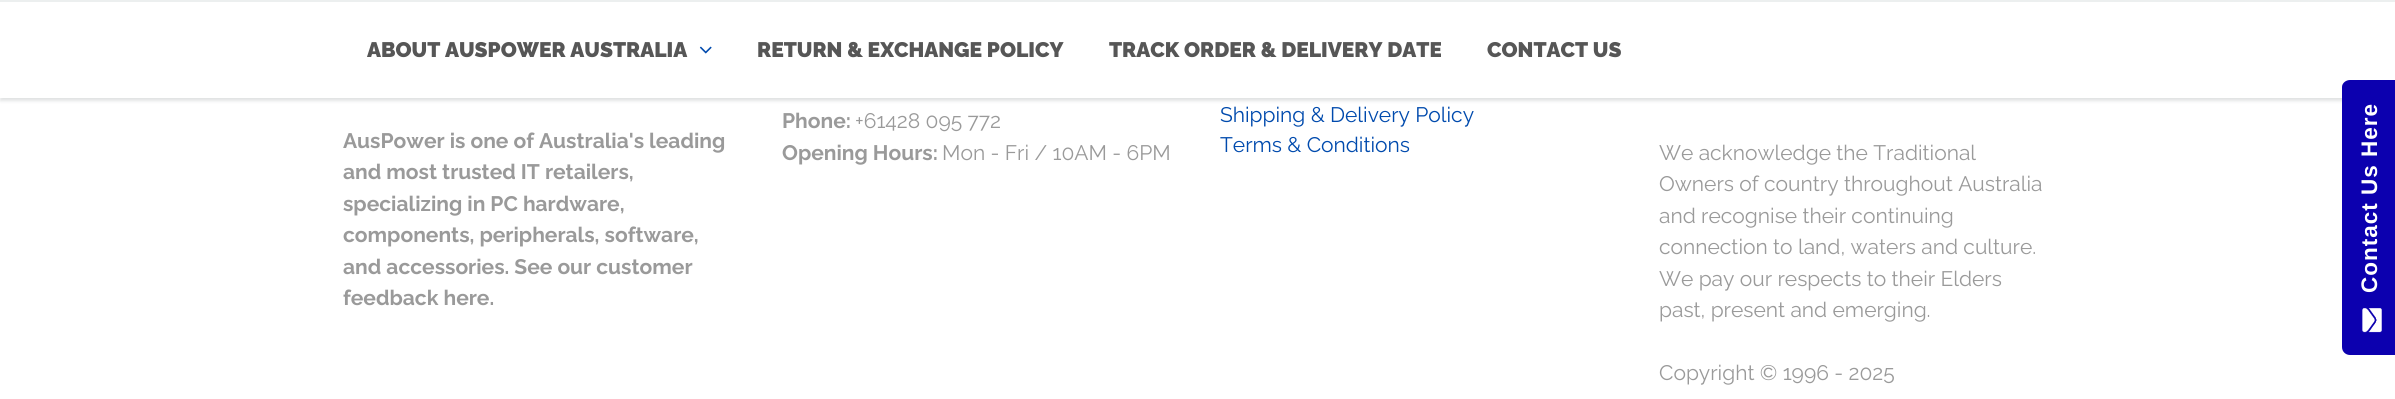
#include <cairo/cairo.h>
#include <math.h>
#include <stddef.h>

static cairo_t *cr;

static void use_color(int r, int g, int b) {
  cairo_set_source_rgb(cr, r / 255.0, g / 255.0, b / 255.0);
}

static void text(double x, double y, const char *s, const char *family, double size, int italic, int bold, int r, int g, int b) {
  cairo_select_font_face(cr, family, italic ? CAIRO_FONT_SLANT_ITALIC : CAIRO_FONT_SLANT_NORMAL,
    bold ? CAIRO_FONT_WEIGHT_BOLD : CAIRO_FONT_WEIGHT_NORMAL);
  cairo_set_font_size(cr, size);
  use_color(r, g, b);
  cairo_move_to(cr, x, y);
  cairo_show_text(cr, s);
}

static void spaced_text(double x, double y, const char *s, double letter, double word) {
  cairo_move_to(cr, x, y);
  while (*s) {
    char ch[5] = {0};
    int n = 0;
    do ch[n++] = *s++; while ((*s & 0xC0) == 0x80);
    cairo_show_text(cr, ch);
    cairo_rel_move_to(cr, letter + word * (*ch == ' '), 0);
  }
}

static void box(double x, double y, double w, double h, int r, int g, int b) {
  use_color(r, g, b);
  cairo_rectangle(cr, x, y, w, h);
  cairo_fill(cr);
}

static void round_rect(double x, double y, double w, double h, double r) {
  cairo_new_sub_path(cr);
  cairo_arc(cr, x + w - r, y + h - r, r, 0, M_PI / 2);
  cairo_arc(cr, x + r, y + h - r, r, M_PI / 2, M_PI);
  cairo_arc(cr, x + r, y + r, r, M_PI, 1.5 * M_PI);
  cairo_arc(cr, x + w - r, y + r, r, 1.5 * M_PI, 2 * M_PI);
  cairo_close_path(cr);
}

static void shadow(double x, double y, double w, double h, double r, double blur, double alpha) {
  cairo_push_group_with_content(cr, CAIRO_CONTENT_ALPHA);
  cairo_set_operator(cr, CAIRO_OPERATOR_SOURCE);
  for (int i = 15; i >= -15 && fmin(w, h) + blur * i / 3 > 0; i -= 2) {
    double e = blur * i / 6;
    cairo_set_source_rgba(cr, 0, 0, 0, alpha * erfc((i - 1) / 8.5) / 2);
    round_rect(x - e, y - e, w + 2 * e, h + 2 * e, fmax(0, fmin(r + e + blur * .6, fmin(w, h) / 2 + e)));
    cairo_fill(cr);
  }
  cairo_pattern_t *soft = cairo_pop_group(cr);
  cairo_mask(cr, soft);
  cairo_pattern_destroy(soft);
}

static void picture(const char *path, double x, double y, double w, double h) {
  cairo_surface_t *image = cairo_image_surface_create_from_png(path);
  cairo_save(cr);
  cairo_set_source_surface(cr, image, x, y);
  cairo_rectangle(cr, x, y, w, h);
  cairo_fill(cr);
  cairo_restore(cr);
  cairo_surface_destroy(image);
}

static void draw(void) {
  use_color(255, 255, 255);
  cairo_paint(cr);
  use_color(11, 25, 28);
  shadow(0, 3, 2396, 98, 0, 1.5, 0.12);
  box(0, 2, 2395, 96, 255, 255, 255);
  box(0, 0, 2395, 2, 236, 239, 239);
  picture("img_01.png", 699, 46, 13, 8);
  use_color(12, 0, 175);
  cairo_new_path(cr);
  cairo_move_to(cr, 2342, 347);
  cairo_line_to(cr, 2342, 87);
  cairo_curve_to(cr, 2342, 83, 2346, 80, 2350, 80);
  cairo_line_to(cr, 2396, 80);
  cairo_line_to(cr, 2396, 355);
  cairo_line_to(cr, 2350, 355);
  cairo_curve_to(cr, 2346, 355, 2342, 352, 2342, 347);
  cairo_close_path(cr);
  cairo_fill(cr);
  picture("img_02.png", 2362, 308, 20, 25);
  text(367, 57, "ABOUT AUSPOWER AUSTRALIA", "Raleway Black", 21, 0, 0, 86, 86, 86);
  text(757, 57, "RETURN & EXCHANGE POLICY", "Raleway Black", 21, 0, 0, 86, 86, 86);
  text(1109, 57, "TRACK ORDER & DELIVERY DATE", "Raleway Black", 21, 0, 0, 86, 86, 86);
  text(1487, 57, "CONTACT US", "Raleway Black", 21, 0, 0, 86, 86, 86);
  text(343, 148, "AusPower is one of Australia's leading", "Raleway", 21, 0, 1, 154, 154, 154);
  text(343, 179, "and most trusted IT retailers,", "Raleway", 21, 0, 1, 154, 154, 154);
  text(343, 211, "specializing in PC hardware,", "Raleway", 21, 0, 1, 154, 154, 154);
  text(343, 242, "components, peripherals, software,", "Raleway", 21, 0, 1, 154, 154, 154);
  text(343, 274, "and accessories. See our customer", "Raleway", 21, 0, 1, 154, 154, 154);
  text(343, 305, "feedback here.", "Raleway", 21, 0, 1, 154, 154, 154);
  text(782, 128, "Phone:", "Raleway", 21, 0, 1, 154, 154, 154);
  text(855, 128, "+61428 095 772", "Raleway", 21, 0, 0, 154, 154, 154);
  text(782, 160, "Opening Hours:", "Raleway", 21, 0, 1, 154, 154, 154);
  text(942, 160, "Mon - Fri / 10AM - 6PM", "Raleway", 21, 0, 0, 154, 154, 154);
  text(1220, 122, "Shipping & Delivery Policy", "Raleway", 21, 0, 0, 0, 74, 173);
  text(1220, 152, "Terms & Conditions", "Raleway", 21, 0, 0, 0, 74, 173);
  text(1659, 160, "We acknowledge the Traditional", "Raleway", 21, 0, 0, 154, 154, 154);
  text(1659, 191, "Owners of country throughout Australia", "Raleway", 21, 0, 0, 154, 154, 154);
  text(1659, 223, "and recognise their continuing", "Raleway", 21, 0, 0, 154, 154, 154);
  text(1659, 254, "connection to land, waters and culture.", "Raleway", 21, 0, 0, 154, 154, 154);
  text(1659, 286, "We pay our respects to their Elders", "Raleway", 21, 0, 0, 154, 154, 154);
  text(1659, 317, "past, present and emerging.", "Raleway", 21, 0, 0, 154, 154, 154);
  text(1659, 380, "Copyright © 1996 - 2025", "Raleway", 21, 0, 0, 154, 154, 154);
  cairo_select_font_face(cr, "Liberation Sans", CAIRO_FONT_SLANT_NORMAL, CAIRO_FONT_WEIGHT_BOLD);
  cairo_set_font_size(cr, 22.5);
  use_color(255, 255, 255);
  cairo_save(cr);
  cairo_translate(cr, 2377, 293);
  cairo_rotate(cr, -90 * M_PI / 180);
  spaced_text(0, 0, "Contact Us Here", 1, 0);
  cairo_restore(cr);
}

int main(void) {
  cairo_surface_t *surface = cairo_image_surface_create(CAIRO_FORMAT_RGB24, 2395, 399);
  cr = cairo_create(surface);
  cairo_font_options_t *options = cairo_font_options_create();
  cairo_font_options_set_hint_metrics(options, CAIRO_HINT_METRICS_OFF);
  cairo_font_options_set_hint_style(options, CAIRO_HINT_STYLE_NONE);
  cairo_set_font_options(cr, options);
  cairo_set_miter_limit(cr, 4);
  draw();
  cairo_surface_write_to_png(surface, "out.png");
  cairo_font_options_destroy(options);
  cairo_destroy(cr);
  cairo_surface_destroy(surface);
  return 0;
}
